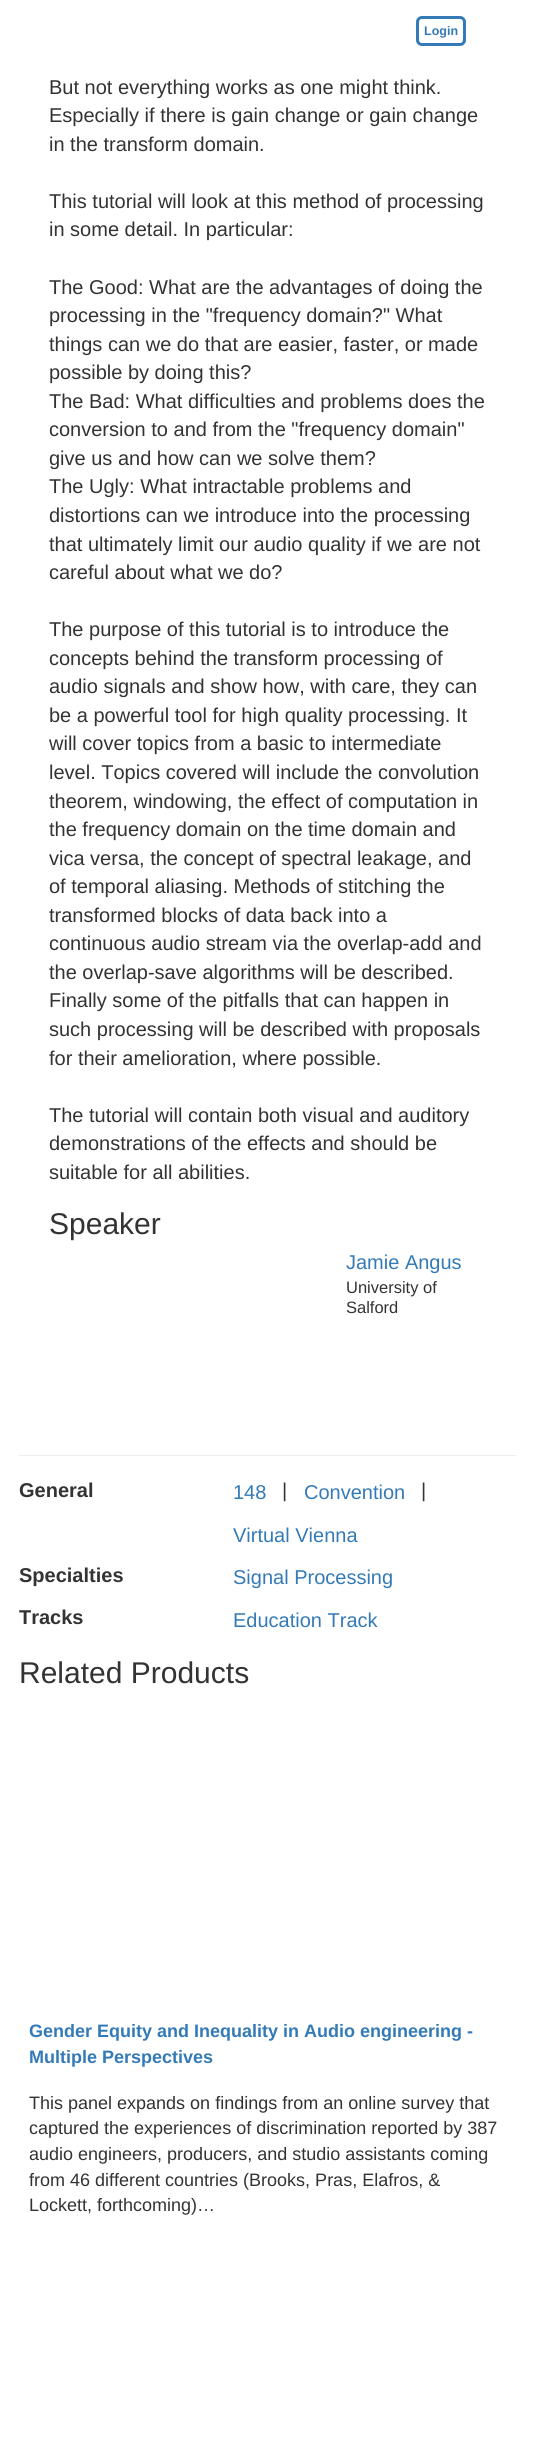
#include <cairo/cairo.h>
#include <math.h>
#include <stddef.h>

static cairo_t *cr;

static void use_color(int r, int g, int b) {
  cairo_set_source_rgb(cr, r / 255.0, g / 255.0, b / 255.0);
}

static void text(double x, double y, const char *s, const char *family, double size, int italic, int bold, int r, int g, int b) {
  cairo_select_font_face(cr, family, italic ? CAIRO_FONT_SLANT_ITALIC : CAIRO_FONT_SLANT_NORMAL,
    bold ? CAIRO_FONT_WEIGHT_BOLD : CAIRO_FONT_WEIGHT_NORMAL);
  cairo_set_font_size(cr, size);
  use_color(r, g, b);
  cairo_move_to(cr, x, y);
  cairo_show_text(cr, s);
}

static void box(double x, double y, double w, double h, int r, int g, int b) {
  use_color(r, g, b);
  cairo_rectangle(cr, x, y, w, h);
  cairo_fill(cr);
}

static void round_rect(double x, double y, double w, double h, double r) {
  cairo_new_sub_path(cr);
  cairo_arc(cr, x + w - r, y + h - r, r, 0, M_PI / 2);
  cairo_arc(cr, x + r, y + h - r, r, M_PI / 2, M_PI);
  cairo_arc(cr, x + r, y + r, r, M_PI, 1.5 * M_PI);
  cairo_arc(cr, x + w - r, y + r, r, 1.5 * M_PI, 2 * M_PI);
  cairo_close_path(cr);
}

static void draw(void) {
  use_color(255, 255, 255);
  cairo_paint(cr);
  round_rect(417.5, 17.5, 47, 27, 4.5);
  use_color(51, 122, 183);
  cairo_set_line_width(cr, 3);
  cairo_stroke(cr);
  box(19, 1455, 497, 1, 238, 238, 238);
  text(424, 35, "Login", "Liberation Sans", 12.5, 0, 1, 51, 122, 183);
  text(49, 94, "But not everything works as one might think.", "Liberation Sans", 20, 0, 0, 51, 51, 51);
  text(49, 122, "Especially if there is gain change or gain change", "Liberation Sans", 20, 0, 0, 51, 51, 51);
  text(49, 151, "in the transform domain.", "Liberation Sans", 20, 0, 0, 51, 51, 51);
  text(49, 208, "This tutorial will look at this method of processing", "Liberation Sans", 20, 0, 0, 51, 51, 51);
  text(49, 236, "in some detail. In particular:", "Liberation Sans", 20, 0, 0, 51, 51, 51);
  text(49, 294, "The Good: What are the advantages of doing the", "Liberation Sans", 20, 0, 0, 51, 51, 51);
  text(49, 322, "processing in the \"frequency domain?\" What", "Liberation Sans", 20, 0, 0, 51, 51, 51);
  text(49, 351, "things can we do that are easier, faster, or made", "Liberation Sans", 20, 0, 0, 51, 51, 51);
  text(49, 379, "possible by doing this?", "Liberation Sans", 20, 0, 0, 51, 51, 51);
  text(49, 408, "The Bad: What difficulties and problems does the", "Liberation Sans", 20, 0, 0, 51, 51, 51);
  text(49, 436, "conversion to and from the \"frequency domain\"", "Liberation Sans", 20, 0, 0, 51, 51, 51);
  text(49, 465, "give us and how can we solve them?", "Liberation Sans", 20, 0, 0, 51, 51, 51);
  text(49, 493, "The Ugly: What intractable problems and", "Liberation Sans", 20, 0, 0, 51, 51, 51);
  text(49, 522, "distortions can we introduce into the processing", "Liberation Sans", 20, 0, 0, 51, 51, 51);
  text(49, 551, "that ultimately limit our audio quality if we are not", "Liberation Sans", 20, 0, 0, 51, 51, 51);
  text(49, 579, "careful about what we do?", "Liberation Sans", 20, 0, 0, 51, 51, 51);
  text(49, 636, "The purpose of this tutorial is to introduce the", "Liberation Sans", 20, 0, 0, 51, 51, 51);
  text(49, 665, "concepts behind the transform processing of", "Liberation Sans", 20, 0, 0, 51, 51, 51);
  text(49, 693, "audio signals and show how, with care, they can", "Liberation Sans", 20, 0, 0, 51, 51, 51);
  text(49, 722, "be a powerful tool for high quality processing. It", "Liberation Sans", 20, 0, 0, 51, 51, 51);
  text(49, 750, "will cover topics from a basic to intermediate", "Liberation Sans", 20, 0, 0, 51, 51, 51);
  text(49, 779, "level. Topics covered will include the convolution", "Liberation Sans", 20, 0, 0, 51, 51, 51);
  text(49, 808, "theorem, windowing, the effect of computation in", "Liberation Sans", 20, 0, 0, 51, 51, 51);
  text(49, 836, "the frequency domain on the time domain and", "Liberation Sans", 20, 0, 0, 51, 51, 51);
  text(49, 865, "vica versa, the concept of spectral leakage, and", "Liberation Sans", 20, 0, 0, 51, 51, 51);
  text(49, 893, "of temporal aliasing. Methods of stitching the", "Liberation Sans", 20, 0, 0, 51, 51, 51);
  text(49, 922, "transformed blocks of data back into a", "Liberation Sans", 20, 0, 0, 51, 51, 51);
  text(49, 950, "continuous audio stream via the overlap-add and", "Liberation Sans", 20, 0, 0, 51, 51, 51);
  text(49, 979, "the overlap-save algorithms will be described.", "Liberation Sans", 20, 0, 0, 51, 51, 51);
  text(49, 1007, "Finally some of the pitfalls that can happen in", "Liberation Sans", 20, 0, 0, 51, 51, 51);
  text(49, 1036, "such processing will be described with proposals", "Liberation Sans", 20, 0, 0, 51, 51, 51);
  text(49, 1065, "for their amelioration, where possible.", "Liberation Sans", 20, 0, 0, 51, 51, 51);
  text(49, 1122, "The tutorial will contain both visual and auditory", "Liberation Sans", 20, 0, 0, 51, 51, 51);
  text(49, 1150, "demonstrations of the effects and should be", "Liberation Sans", 20, 0, 0, 51, 51, 51);
  text(49, 1179, "suitable for all abilities.", "Liberation Sans", 20, 0, 0, 51, 51, 51);
  text(49, 1234, "Speaker", "Liberation Sans", 30, 0, 0, 51, 51, 51);
  text(346, 1269, "Jamie Angus", "Liberation Sans", 20, 0, 0, 51, 122, 183);
  text(346, 1293, "University of", "Liberation Sans", 16.5, 0, 0, 51, 51, 51);
  text(346, 1313, "Salford", "Liberation Sans", 16.5, 0, 0, 51, 51, 51);
  text(19, 1497, "General", "Liberation Sans", 20, 0, 1, 51, 51, 51);
  text(233, 1499, "148", "Liberation Sans", 20, 0, 0, 51, 122, 183);
  text(282, 1497, "|", "Liberation Sans", 20, 0, 0, 51, 51, 51);
  text(304, 1499, "Convention", "Liberation Sans", 20, 0, 0, 51, 122, 183);
  text(421, 1497, "|", "Liberation Sans", 20, 0, 0, 51, 51, 51);
  text(233, 1542, "Virtual Vienna", "Liberation Sans", 20, 0, 0, 51, 122, 183);
  text(19, 1582, "Specialties", "Liberation Sans", 20, 0, 1, 51, 51, 51);
  text(233, 1584, "Signal Processing", "Liberation Sans", 20, 0, 0, 51, 122, 183);
  text(19, 1624, "Tracks", "Liberation Sans", 20, 0, 1, 51, 51, 51);
  text(233, 1627, "Education Track", "Liberation Sans", 20, 0, 0, 51, 122, 183);
  text(19, 1683, "Related Products", "Liberation Sans", 30, 0, 0, 51, 51, 51);
  text(29, 2037, "Gender Equity and Inequality in Audio engineering -", "Liberation Sans", 18, 0, 1, 51, 122, 183);
  text(29, 2063, "Multiple Perspectives", "Liberation Sans", 18, 0, 1, 51, 122, 183);
  text(29, 2109, "This panel expands on findings from an online survey that", "Liberation Sans", 18, 0, 0, 51, 51, 51);
  text(29, 2134, "captured the experiences of discrimination reported by 387", "Liberation Sans", 18, 0, 0, 51, 51, 51);
  text(29, 2160, "audio engineers, producers, and studio assistants coming", "Liberation Sans", 18, 0, 0, 51, 51, 51);
  text(29, 2186, "from 46 different countries (Brooks, Pras, Elafros, &", "Liberation Sans", 18, 0, 0, 51, 51, 51);
  text(29, 2211, "Lockett, forthcoming)…", "Liberation Sans", 18, 0, 0, 51, 51, 51);
}

int main(void) {
  cairo_surface_t *surface = cairo_image_surface_create(CAIRO_FORMAT_RGB24, 534, 2464);
  cr = cairo_create(surface);
  cairo_font_options_t *options = cairo_font_options_create();
  cairo_font_options_set_hint_metrics(options, CAIRO_HINT_METRICS_OFF);
  cairo_font_options_set_hint_style(options, CAIRO_HINT_STYLE_NONE);
  cairo_set_font_options(cr, options);
  cairo_set_miter_limit(cr, 4);
  draw();
  cairo_surface_write_to_png(surface, "out.png");
  cairo_font_options_destroy(options);
  cairo_destroy(cr);
  cairo_surface_destroy(surface);
  return 0;
}
